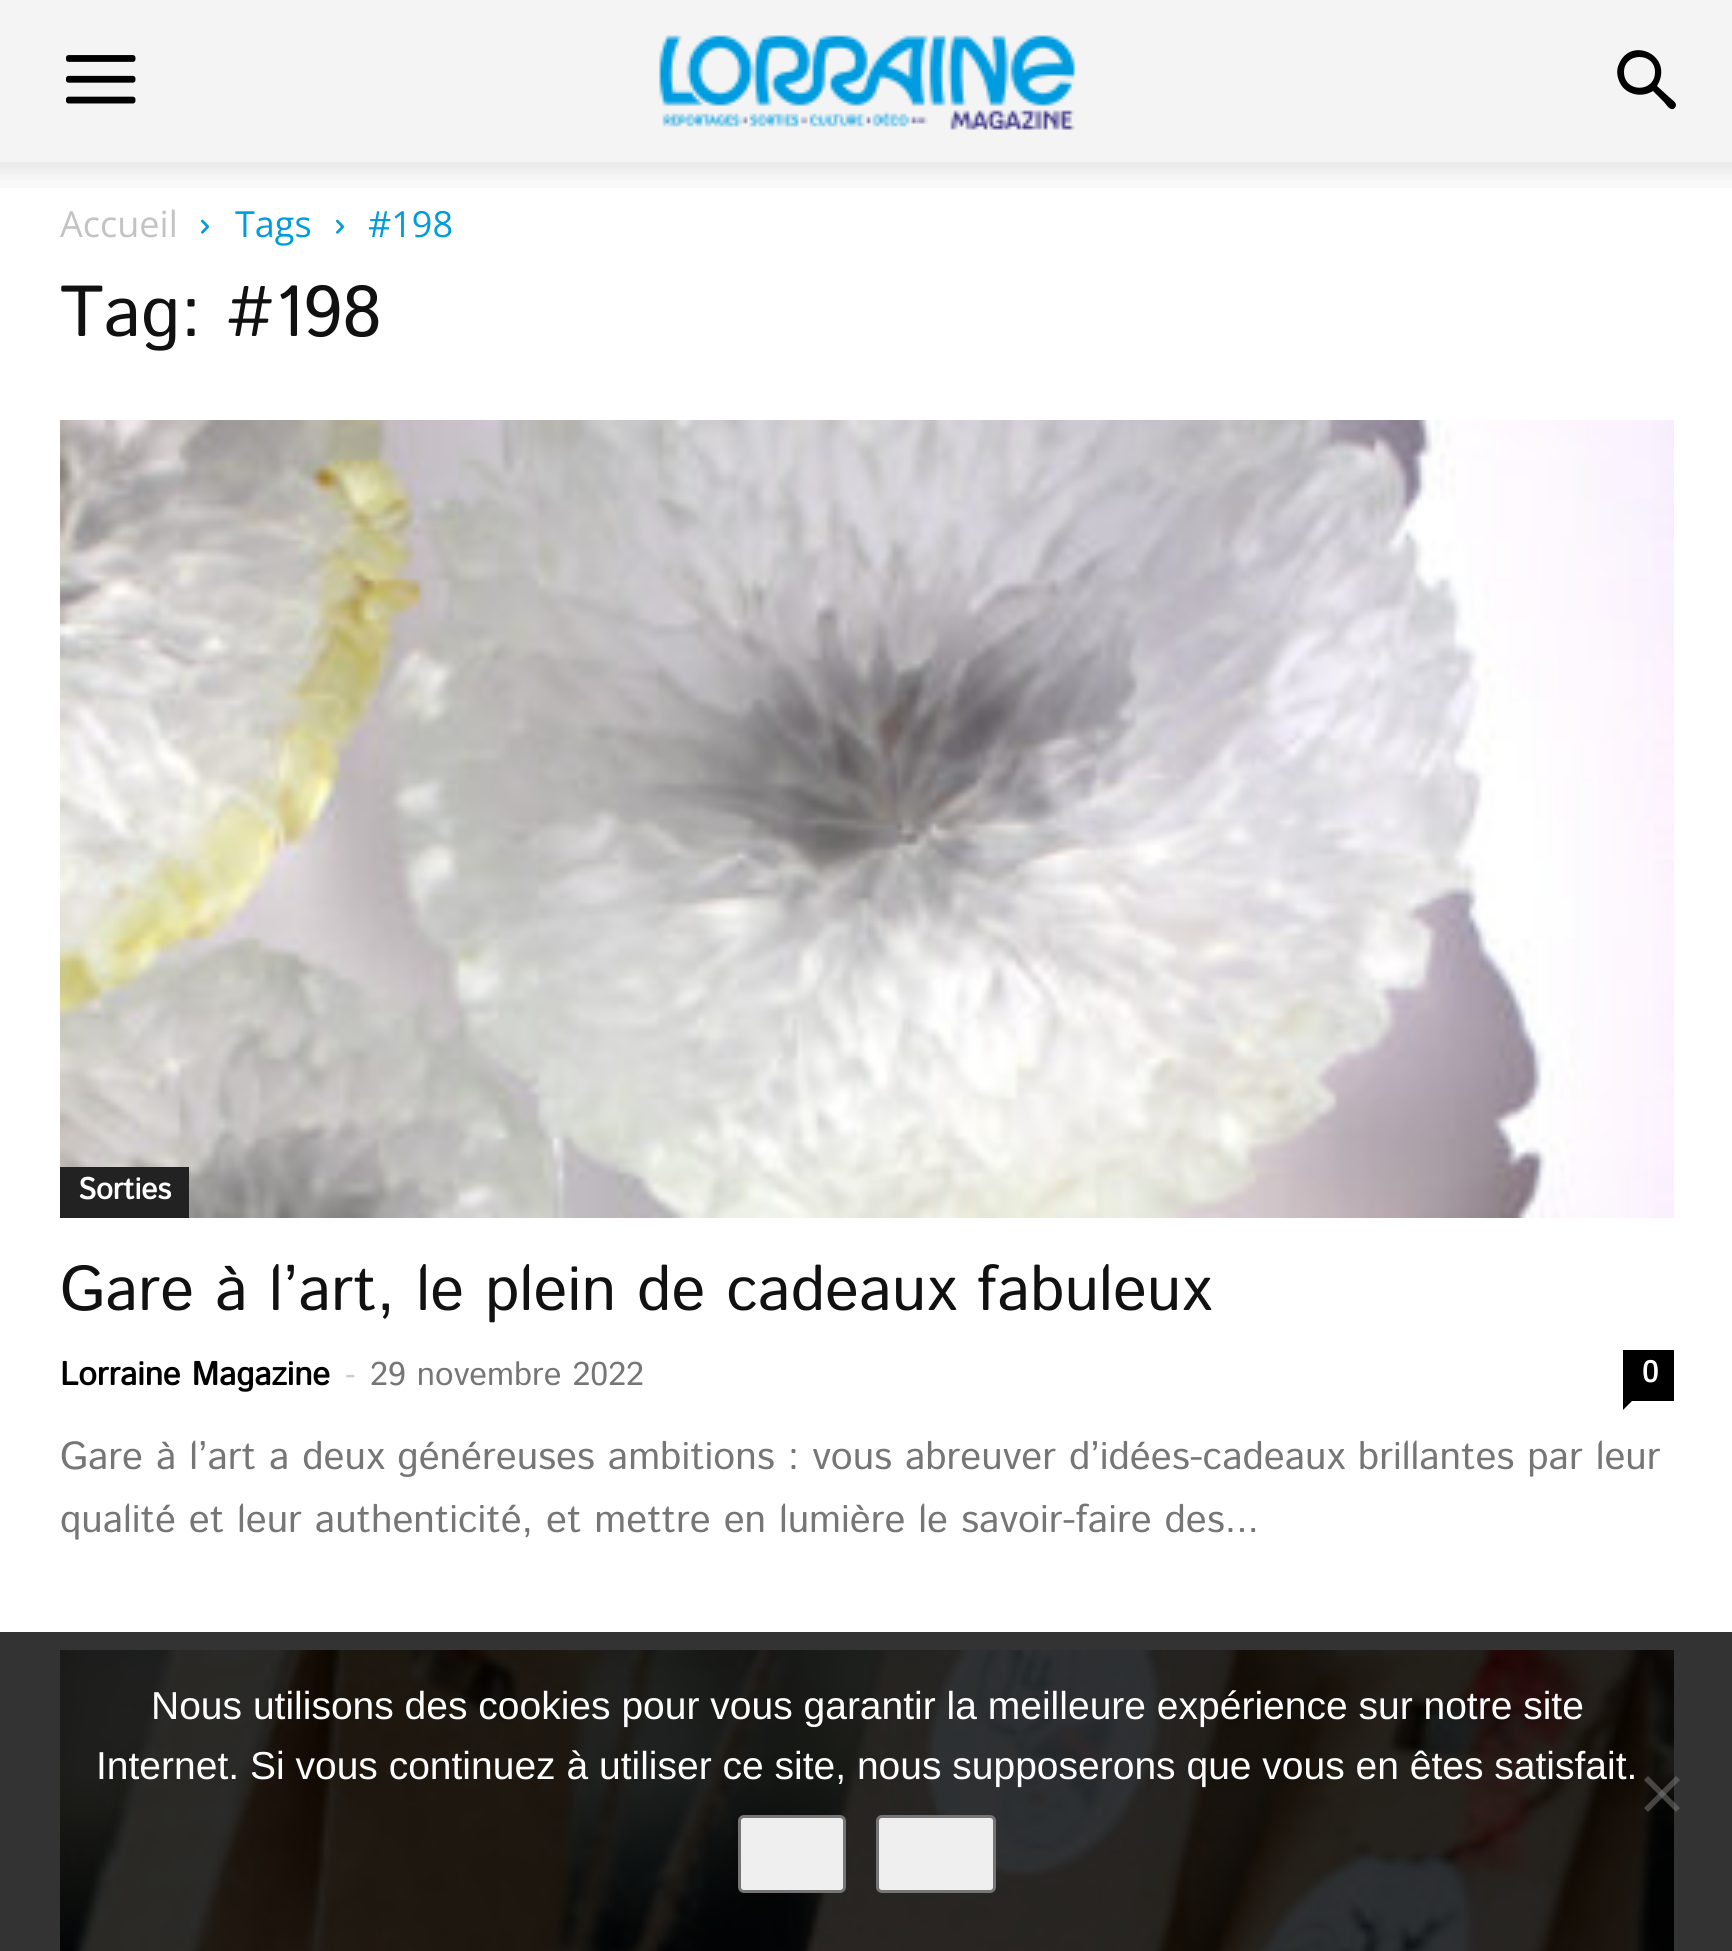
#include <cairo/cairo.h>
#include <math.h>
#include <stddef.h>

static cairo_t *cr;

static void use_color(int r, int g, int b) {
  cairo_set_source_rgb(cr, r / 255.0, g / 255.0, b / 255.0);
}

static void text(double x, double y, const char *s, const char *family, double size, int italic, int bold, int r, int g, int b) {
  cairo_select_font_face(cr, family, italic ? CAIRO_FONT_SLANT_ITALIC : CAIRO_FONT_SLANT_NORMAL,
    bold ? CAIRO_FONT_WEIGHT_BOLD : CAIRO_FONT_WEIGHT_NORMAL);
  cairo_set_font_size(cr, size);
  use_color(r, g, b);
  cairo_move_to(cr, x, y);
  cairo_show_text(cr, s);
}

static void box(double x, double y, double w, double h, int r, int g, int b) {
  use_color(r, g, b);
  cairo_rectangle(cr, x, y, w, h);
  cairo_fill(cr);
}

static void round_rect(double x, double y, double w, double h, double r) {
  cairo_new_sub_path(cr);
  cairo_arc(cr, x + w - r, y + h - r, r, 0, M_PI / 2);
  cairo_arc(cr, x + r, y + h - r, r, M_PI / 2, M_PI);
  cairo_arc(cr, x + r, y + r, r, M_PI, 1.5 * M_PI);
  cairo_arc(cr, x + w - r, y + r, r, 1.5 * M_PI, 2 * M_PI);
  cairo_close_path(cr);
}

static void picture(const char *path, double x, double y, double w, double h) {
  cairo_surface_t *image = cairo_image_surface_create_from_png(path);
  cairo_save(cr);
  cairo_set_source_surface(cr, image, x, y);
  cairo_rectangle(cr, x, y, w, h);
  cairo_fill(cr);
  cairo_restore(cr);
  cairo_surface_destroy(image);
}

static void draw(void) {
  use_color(255, 255, 255);
  cairo_paint(cr);
  box(0, 1632, 1732, 319, 51, 51, 51);
  box(0, 0, 1732, 162, 244, 244, 244);
  picture("img_01.png", 66, 55, 70, 49);
  picture("img_02.png", 659, 35, 416, 95);
  use_color(0, 0, 0);
  cairo_new_path(cr);
  cairo_move_to(cr, 1655, 72);
  cairo_curve_to(cr, 1655, 93, 1624, 93, 1624, 72);
  cairo_curve_to(cr, 1624, 52, 1655, 52, 1655, 72);
  cairo_close_path(cr);
  cairo_move_to(cr, 1676, 105);
  cairo_curve_to(cr, 1676, 102, 1671, 99, 1669, 97);
  cairo_line_to(cr, 1657, 86);
  cairo_curve_to(cr, 1675, 56, 1631, 35, 1619, 64);
  cairo_curve_to(cr, 1616, 70, 1617, 77, 1620, 83);
  cairo_curve_to(cr, 1626, 95, 1642, 98, 1653, 91);
  cairo_line_to(cr, 1664, 102);
  cairo_curve_to(cr, 1666, 104, 1669, 110, 1673, 109);
  cairo_curve_to(cr, 1674, 109, 1676, 107, 1676, 105);
  cairo_close_path(cr);
  cairo_fill(cr);
  picture("img_03.png", 0, 162, 1732, 26);
  picture("img_04.png", 201, 219, 9, 15);
  picture("img_04.png", 336, 219, 9, 15);
  picture("img_05.png", 60, 420, 1614, 798);
  box(60, 1167, 129, 51, 34, 34, 34);
  box(1623, 1350, 51, 51, 0, 0, 0);
  cairo_new_path(cr);
  cairo_move_to(cr, 1623, 1401);
  cairo_line_to(cr, 1632, 1401);
  cairo_line_to(cr, 1623, 1410);
  cairo_close_path(cr);
  cairo_fill(cr);
  picture("img_06.png", 60, 1650, 1614, 301);
  cairo_set_source_rgba(cr, 0.502, 0.502, 0.502, 0.5);
  cairo_new_path(cr);
  cairo_move_to(cr, 1676, 1776);
  cairo_line_to(cr, 1680, 1780);
  cairo_line_to(cr, 1648, 1812);
  cairo_line_to(cr, 1644, 1808);
  cairo_close_path(cr);
  cairo_fill(cr);
  cairo_new_path(cr);
  cairo_move_to(cr, 1644, 1780);
  cairo_line_to(cr, 1648, 1776);
  cairo_line_to(cr, 1680, 1808);
  cairo_line_to(cr, 1676, 1812);
  cairo_close_path(cr);
  cairo_fill(cr);
  use_color(239, 239, 239);
  round_rect(739.5, 1816.5, 105, 75, 4.5);
  cairo_fill_preserve(cr);
  use_color(118, 118, 118);
  cairo_set_line_width(cr, 3);
  cairo_stroke(cr);
  use_color(239, 239, 239);
  round_rect(877.5, 1816.5, 117, 75, 4.5);
  cairo_fill_preserve(cr);
  use_color(118, 118, 118);
  cairo_stroke(cr);
  text(60, 237, "Accueil", "Open Sans", 36, 0, 0, 195, 195, 195);
  text(235, 237, "Tags", "Open Sans", 36, 0, 0, 0, 156, 223);
  text(368, 237, "#198", "Open Sans", 36, 0, 0, 0, 156, 223);
  text(60, 336, "Tag: #198", "Istok Web", 72, 0, 0, 17, 17, 17);
  text(78, 1199, "Sorties", "Istok Web", 30, 0, 1, 255, 255, 255);
  text(60, 1310, "Gare à l’art, le plein de cadeaux fabuleux", "Istok Web", 63, 0, 0, 17, 17, 17);
  text(60, 1385, "Lorraine Magazine", "Istok Web", 33, 0, 1, 0, 0, 0);
  text(345, 1385, "-", "Open Sans", 33, 0, 0, 204, 204, 204);
  text(370, 1385, "29 novembre 2022", "Istok Web", 33, 0, 0, 118, 118, 118);
  text(1642, 1382, "0", "Istok Web", 30, 0, 1, 255, 255, 255);
  text(60, 1469, "Gare à l’art a deux généreuses ambitions : vous abreuver d’idées-cadeaux brillantes par leur", "Istok Web", 39, 0, 0, 118, 118, 118);
  text(60, 1532, "qualité et leur authenticité, et mettre en lumière le savoir-faire des...", "Istok Web", 39, 0, 0, 118, 118, 118);
  text(151, 1719, "Nous utilisons des cookies pour vous garantir la meilleure expérience sur notre site", "Liberation Sans", 39, 0, 0, 255, 255, 255);
  text(96, 1779, "Internet. Si vous continuez à utiliser ce site, nous supposerons que vous en êtes satisfait.", "Liberation Sans", 39, 0, 0, 255, 255, 255);
}

int main(void) {
  cairo_surface_t *surface = cairo_image_surface_create(CAIRO_FORMAT_RGB24, 1732, 1951);
  cr = cairo_create(surface);
  cairo_font_options_t *options = cairo_font_options_create();
  cairo_font_options_set_hint_metrics(options, CAIRO_HINT_METRICS_OFF);
  cairo_font_options_set_hint_style(options, CAIRO_HINT_STYLE_NONE);
  cairo_set_font_options(cr, options);
  cairo_set_miter_limit(cr, 4);
  draw();
  cairo_surface_write_to_png(surface, "out.png");
  cairo_font_options_destroy(options);
  cairo_destroy(cr);
  cairo_surface_destroy(surface);
  return 0;
}
